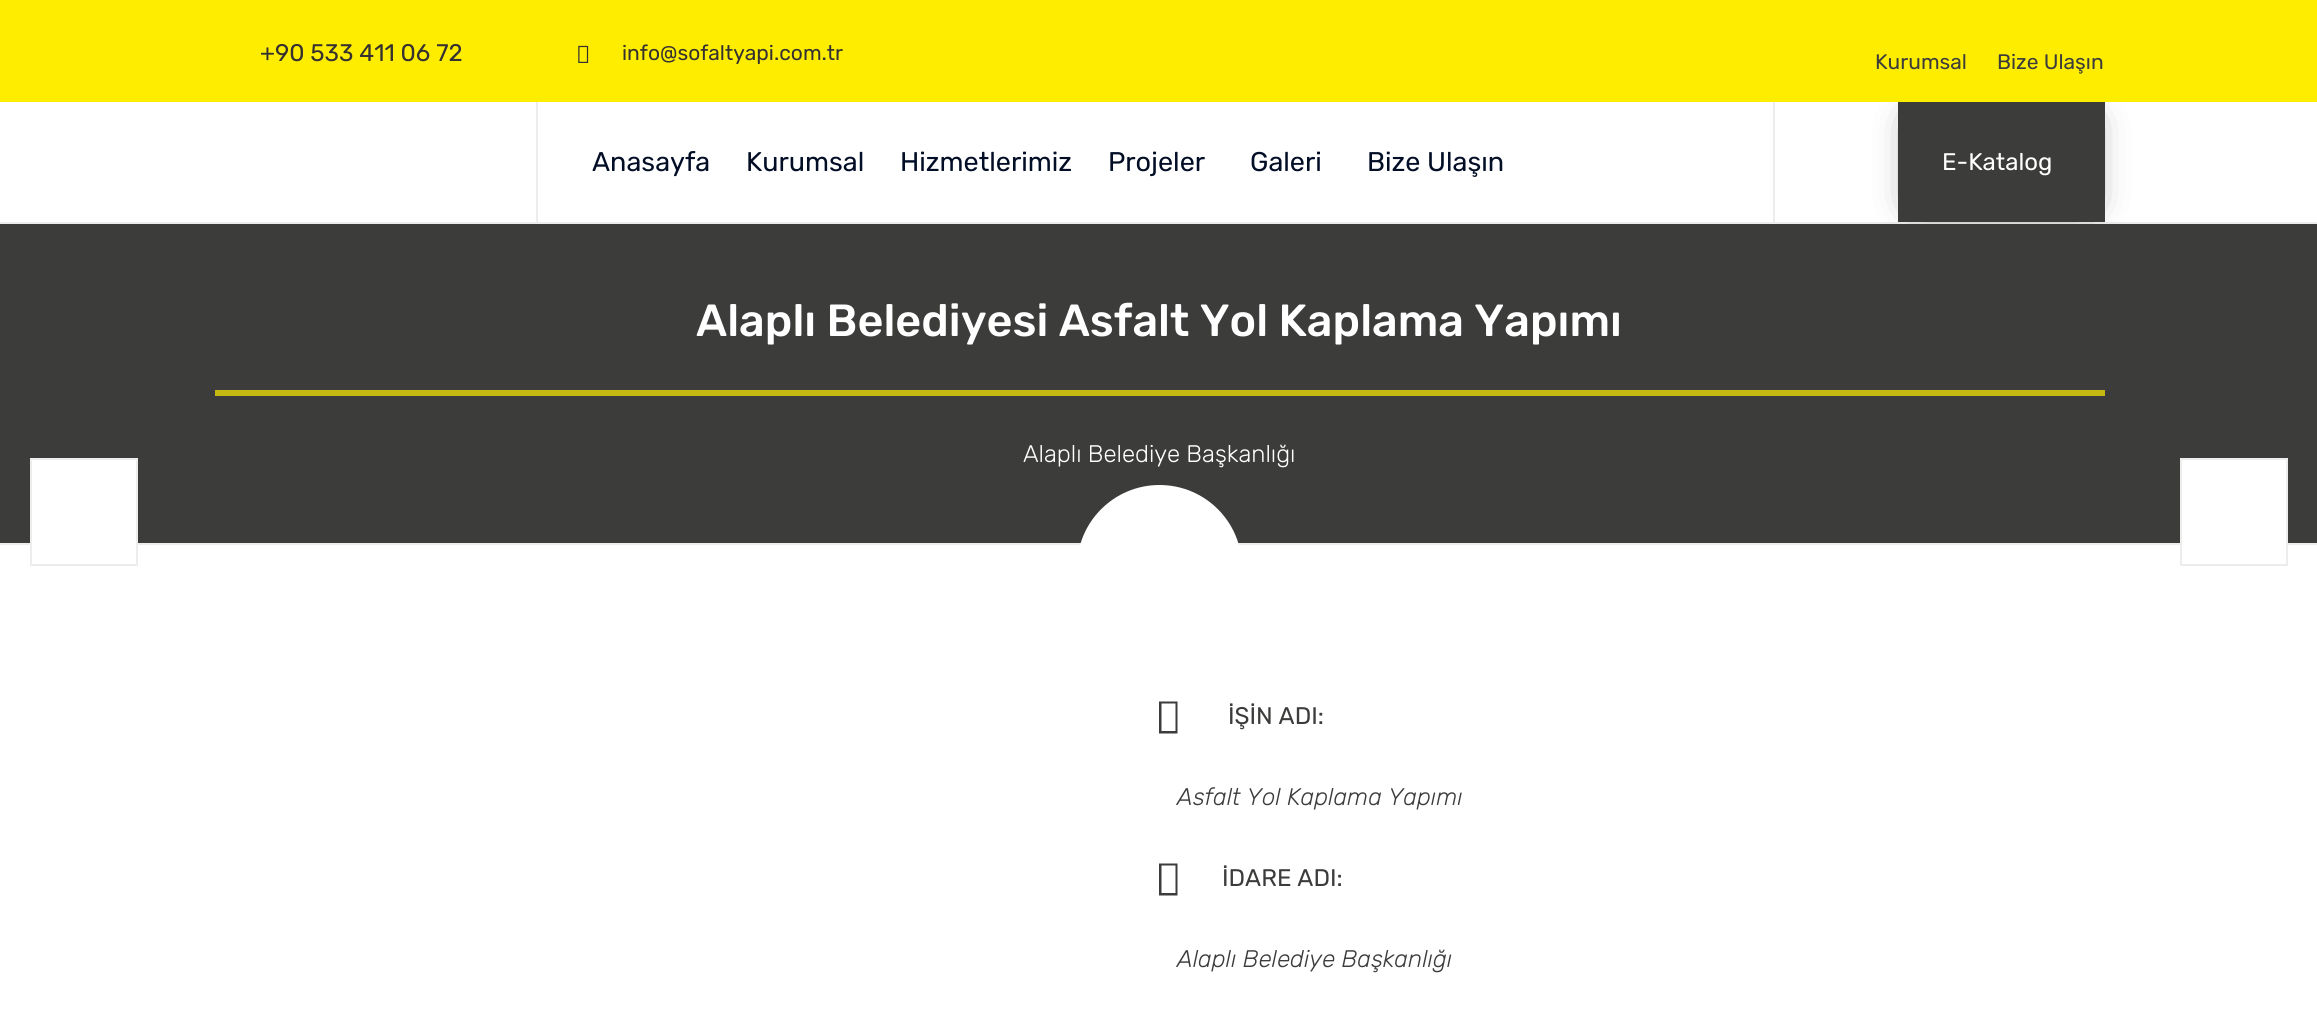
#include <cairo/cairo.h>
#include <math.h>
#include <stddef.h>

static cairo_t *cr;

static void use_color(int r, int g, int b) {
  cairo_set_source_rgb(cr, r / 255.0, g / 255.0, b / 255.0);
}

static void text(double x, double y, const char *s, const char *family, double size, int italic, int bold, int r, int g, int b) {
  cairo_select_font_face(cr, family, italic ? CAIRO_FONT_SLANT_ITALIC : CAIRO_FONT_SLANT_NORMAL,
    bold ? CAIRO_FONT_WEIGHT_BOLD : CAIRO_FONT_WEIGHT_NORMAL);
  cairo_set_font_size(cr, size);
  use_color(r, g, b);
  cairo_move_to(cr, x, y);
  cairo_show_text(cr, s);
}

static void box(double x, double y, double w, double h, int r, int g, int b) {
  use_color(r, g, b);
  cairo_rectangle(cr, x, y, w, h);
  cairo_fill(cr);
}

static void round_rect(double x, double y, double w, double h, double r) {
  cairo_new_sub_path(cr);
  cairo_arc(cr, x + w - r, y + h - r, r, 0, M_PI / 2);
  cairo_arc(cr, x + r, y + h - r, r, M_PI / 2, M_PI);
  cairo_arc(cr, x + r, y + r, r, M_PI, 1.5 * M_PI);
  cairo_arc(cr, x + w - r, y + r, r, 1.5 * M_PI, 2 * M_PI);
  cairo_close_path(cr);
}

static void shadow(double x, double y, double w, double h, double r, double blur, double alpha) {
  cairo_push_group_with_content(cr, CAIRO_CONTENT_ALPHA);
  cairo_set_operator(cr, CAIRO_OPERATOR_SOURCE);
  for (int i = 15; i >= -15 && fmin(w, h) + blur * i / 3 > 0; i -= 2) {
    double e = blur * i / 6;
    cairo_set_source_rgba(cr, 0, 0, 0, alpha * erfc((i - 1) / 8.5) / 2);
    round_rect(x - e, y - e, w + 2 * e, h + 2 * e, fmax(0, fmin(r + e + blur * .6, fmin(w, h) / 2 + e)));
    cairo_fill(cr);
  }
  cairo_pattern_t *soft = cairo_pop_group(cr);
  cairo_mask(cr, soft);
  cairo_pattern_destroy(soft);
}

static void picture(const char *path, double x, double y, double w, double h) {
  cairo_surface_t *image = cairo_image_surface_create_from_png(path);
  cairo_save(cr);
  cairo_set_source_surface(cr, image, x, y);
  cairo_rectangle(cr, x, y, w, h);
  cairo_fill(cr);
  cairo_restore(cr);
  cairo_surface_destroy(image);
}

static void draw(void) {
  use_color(255, 255, 255);
  cairo_paint(cr);
  box(0, 222, 2317, 2, 237, 237, 237);
  box(0, 224, 2317, 319, 60, 60, 59);
  use_color(60, 60, 59);
  shadow(1919, 123, 165, 78, 0, 19, 1);
  box(0, 0, 2317, 102, 255, 237, 0);
  picture("img_01.png", 578, 45, 11, 18);
  box(536, 102, 2, 120, 237, 237, 237);
  box(1773, 102, 2, 120, 237, 237, 237);
  box(1898, 102, 207, 120, 60, 60, 59);
  box(0, 543, 2317, 2, 237, 237, 237);
  box(215, 390, 1890, 6, 197, 184, 18);
  use_color(255, 255, 255);
  cairo_arc(cr, 1159.5, 567.5, 82.5, 0, 2 * M_PI);
  cairo_fill(cr);
  use_color(60, 60, 59);
  cairo_new_path(cr);
  cairo_move_to(cr, 1159, 733.5);
  cairo_line_to(cr, 1159, 701.5);
  cairo_line_to(cr, 1177.5, 701.5);
  cairo_line_to(cr, 1177.5, 733.5);
  cairo_close_path(cr);
  cairo_move_to(cr, 1161.5, 731);
  cairo_line_to(cr, 1175.5, 731);
  cairo_line_to(cr, 1175.5, 703.5);
  cairo_line_to(cr, 1161.5, 703.5);
  cairo_close_path(cr);
  cairo_fill(cr);
  cairo_new_path(cr);
  cairo_move_to(cr, 1159, 895.5);
  cairo_line_to(cr, 1159, 863.5);
  cairo_line_to(cr, 1177.5, 863.5);
  cairo_line_to(cr, 1177.5, 895.5);
  cairo_close_path(cr);
  cairo_move_to(cr, 1161.5, 893);
  cairo_line_to(cr, 1175.5, 893);
  cairo_line_to(cr, 1175.5, 865.5);
  cairo_line_to(cr, 1161.5, 865.5);
  cairo_close_path(cr);
  cairo_fill(cr);
  box(32, 460, 104, 85, 255, 255, 255);
  cairo_rectangle(cr, 31, 459, 106, 106);
  use_color(237, 237, 237);
  cairo_stroke(cr);
  box(2182, 460, 104, 85, 255, 255, 255);
  cairo_rectangle(cr, 2181, 459, 106, 106);
  use_color(237, 237, 237);
  cairo_stroke(cr);
  text(260, 61, "+90 533 411 06 72", "Rubik", 24, 0, 0, 53, 49, 48);
  text(622, 60, "info@sofaltyapi.com.tr", "Rubik", 21, 0, 0, 53, 49, 48);
  text(1875, 69, "Kurumsal", "Rubik", 21, 0, 0, 60, 60, 59);
  text(1997, 69, "Bize Ulaşın", "Rubik", 21, 0, 0, 60, 60, 59);
  text(592, 171, "Anasayfa", "Rubik", 27, 0, 0, 2, 13, 38);
  text(746, 171, "Kurumsal", "Rubik", 27, 0, 0, 2, 13, 38);
  text(900, 171, "Hizmetlerimiz", "Rubik", 27, 0, 0, 2, 13, 38);
  text(1108, 171, "Projeler", "Rubik", 27, 0, 0, 2, 13, 38);
  text(1250, 171, "Galeri", "Rubik", 27, 0, 0, 2, 13, 38);
  text(1367, 171, "Bize Ulaşın", "Rubik", 27, 0, 0, 2, 13, 38);
  text(1942, 170, "E-Katalog", "Rubik", 24, 0, 0, 255, 255, 255);
  text(696, 336, "Alaplı Belediyesi Asfalt Yol Kaplama Yapımı", "Rubik Light", 45, 0, 0, 255, 255, 255);
  text(1023, 462, "Alaplı Belediye Başkanlığı", "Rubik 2 Light", 24, 0, 0, 255, 255, 255);
  text(1228, 724, "İŞİN ADI:", "Rubik", 24, 0, 0, 60, 60, 59);
  text(1177, 805, "Asfalt Yol Kaplama Yapımı", "Rubik Light", 24, 1, 0, 60, 60, 59);
  text(1222, 886, "İDARE ADI:", "Rubik", 24, 0, 0, 60, 60, 59);
  text(1177, 967, "Alaplı Belediye Başkanlığı", "Rubik Light", 24, 1, 0, 60, 60, 59);
}

int main(void) {
  cairo_surface_t *surface = cairo_image_surface_create(CAIRO_FORMAT_RGB24, 2317, 1019);
  cr = cairo_create(surface);
  cairo_font_options_t *options = cairo_font_options_create();
  cairo_font_options_set_hint_metrics(options, CAIRO_HINT_METRICS_OFF);
  cairo_font_options_set_hint_style(options, CAIRO_HINT_STYLE_NONE);
  cairo_set_font_options(cr, options);
  cairo_set_miter_limit(cr, 4);
  draw();
  cairo_surface_write_to_png(surface, "out.png");
  cairo_font_options_destroy(options);
  cairo_destroy(cr);
  cairo_surface_destroy(surface);
  return 0;
}
